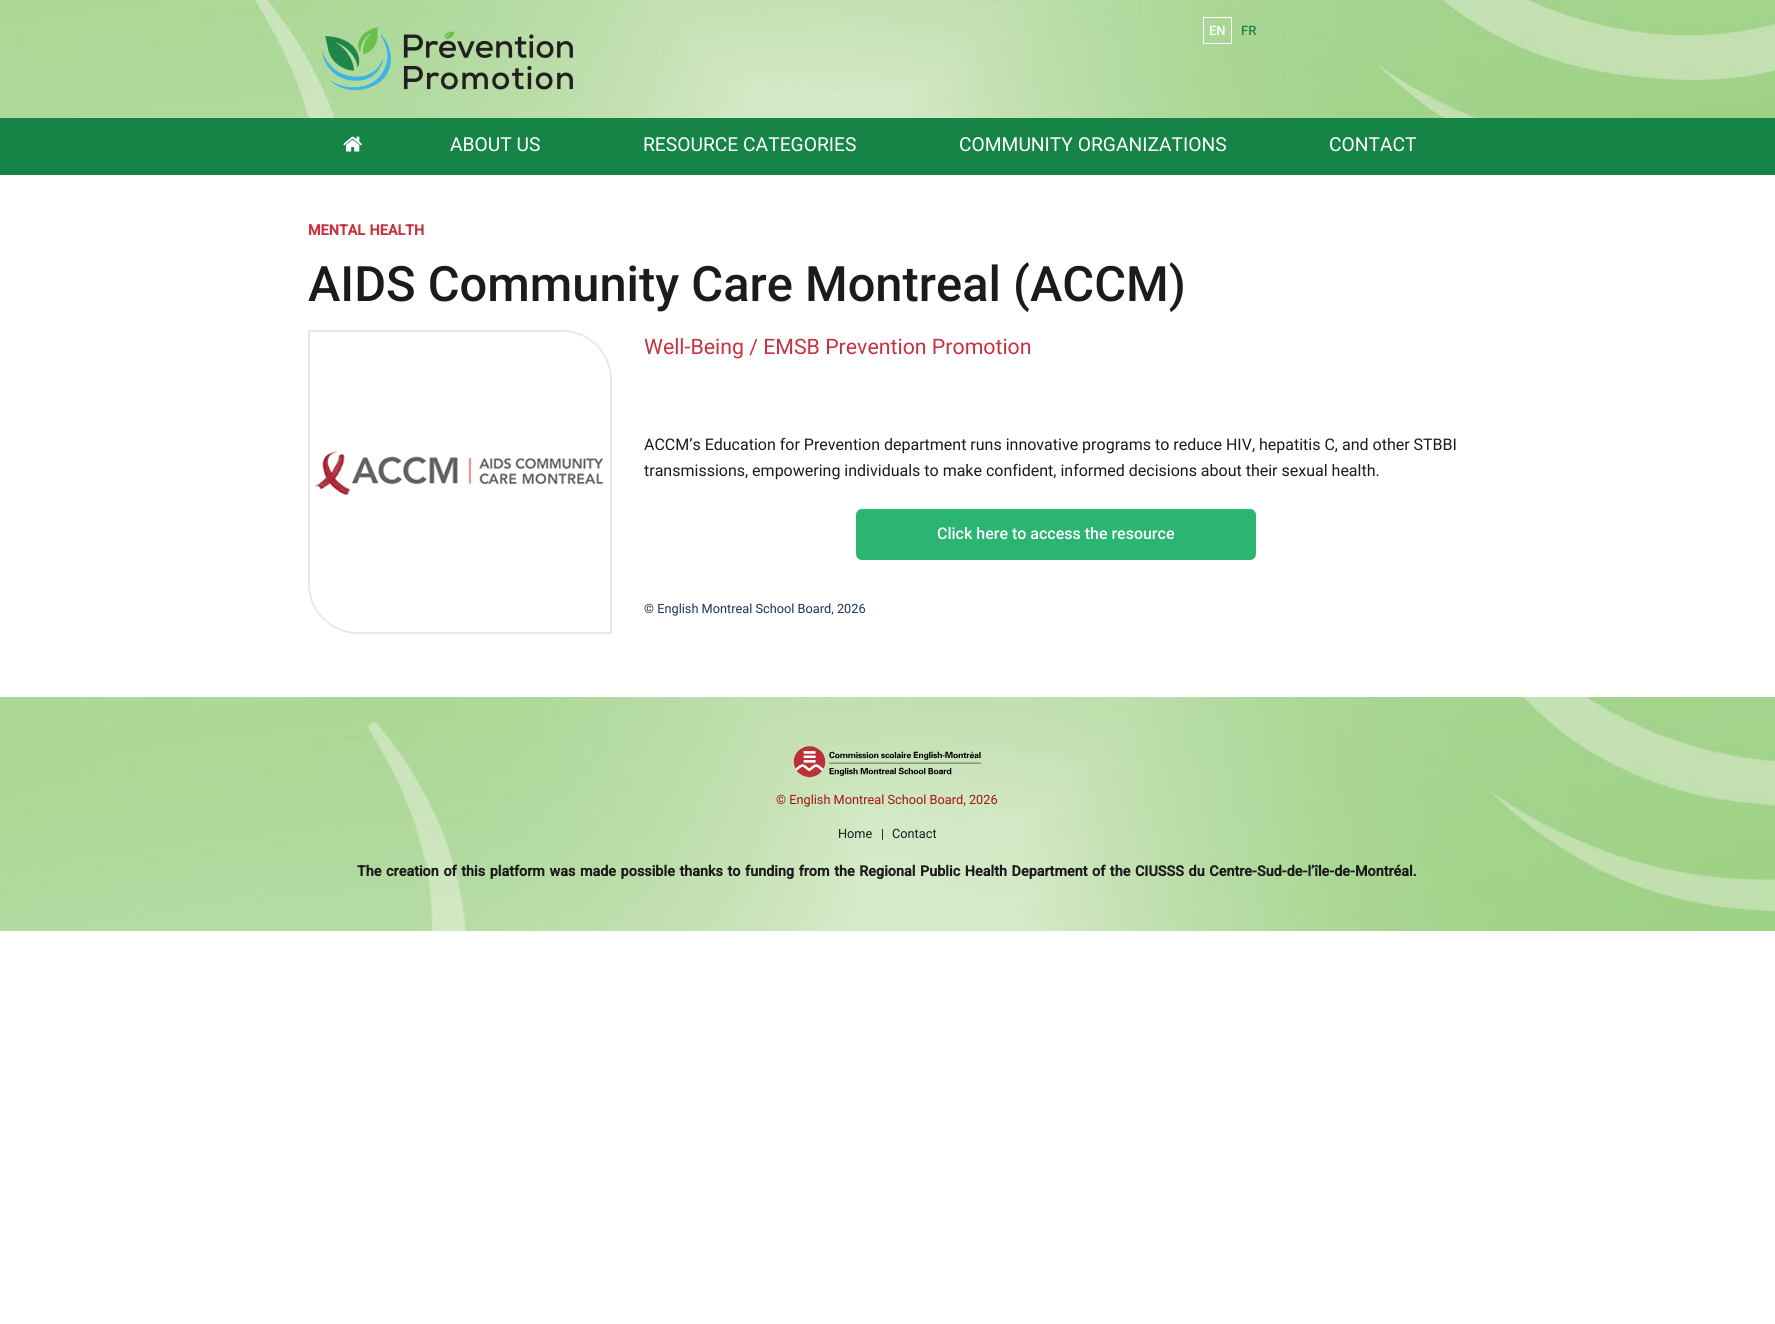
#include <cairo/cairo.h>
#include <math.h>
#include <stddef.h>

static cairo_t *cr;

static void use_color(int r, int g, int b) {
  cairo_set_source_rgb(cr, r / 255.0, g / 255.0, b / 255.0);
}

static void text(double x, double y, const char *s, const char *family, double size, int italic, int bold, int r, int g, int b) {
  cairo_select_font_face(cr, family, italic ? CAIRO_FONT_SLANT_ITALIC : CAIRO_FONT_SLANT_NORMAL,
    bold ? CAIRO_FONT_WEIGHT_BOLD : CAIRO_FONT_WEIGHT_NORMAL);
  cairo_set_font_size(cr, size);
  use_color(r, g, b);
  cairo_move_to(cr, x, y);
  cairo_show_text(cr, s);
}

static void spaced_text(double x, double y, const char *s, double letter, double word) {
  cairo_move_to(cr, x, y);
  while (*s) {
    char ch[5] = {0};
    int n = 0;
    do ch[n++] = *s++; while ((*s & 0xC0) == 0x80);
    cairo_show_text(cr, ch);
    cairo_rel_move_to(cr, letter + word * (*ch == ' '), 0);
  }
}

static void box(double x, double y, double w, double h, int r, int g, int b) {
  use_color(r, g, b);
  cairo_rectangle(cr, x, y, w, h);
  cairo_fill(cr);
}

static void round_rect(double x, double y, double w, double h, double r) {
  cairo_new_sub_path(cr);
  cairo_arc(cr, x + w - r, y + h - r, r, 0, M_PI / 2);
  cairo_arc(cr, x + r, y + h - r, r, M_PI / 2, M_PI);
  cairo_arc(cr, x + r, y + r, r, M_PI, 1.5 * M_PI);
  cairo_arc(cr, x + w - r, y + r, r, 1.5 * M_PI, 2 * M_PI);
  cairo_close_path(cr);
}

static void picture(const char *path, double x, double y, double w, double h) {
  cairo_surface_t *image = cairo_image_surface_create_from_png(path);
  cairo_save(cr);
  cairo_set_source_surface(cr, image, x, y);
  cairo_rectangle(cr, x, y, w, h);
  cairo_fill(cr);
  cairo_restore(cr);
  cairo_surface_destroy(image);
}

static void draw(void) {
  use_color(255, 255, 255);
  cairo_paint(cr);
  picture("img_01.png", 0, 0, 1775, 118);
  picture("img_02.png", 322, 27, 251, 64);
  cairo_rectangle(cr, 1203.5, 17.5, 28, 26);
  use_color(255, 255, 255);
  cairo_set_line_width(cr, 1);
  cairo_stroke(cr);
  box(0, 118, 1775, 57, 23, 132, 71);
  picture("img_03.png", 343, 136, 19, 16);
  cairo_new_path(cr);
  cairo_move_to(cr, 309, 331);
  cairo_line_to(cr, 562, 331);
  cairo_curve_to(cr, 589, 331, 611, 353, 611, 380);
  cairo_line_to(cr, 611, 633);
  cairo_line_to(cr, 358, 633);
  cairo_curve_to(cr, 331, 633, 309, 611, 309, 584);
  cairo_close_path(cr);
  use_color(231, 231, 231);
  cairo_set_line_width(cr, 2);
  cairo_stroke(cr);
  picture("img_04.png", 310, 332, 300, 300);
  use_color(42, 181, 115);
  round_rect(856, 509, 400, 51, 6);
  cairo_fill(cr);
  picture("img_05.png", 0, 697, 1775, 234);
  picture("img_06.png", 793, 746, 188, 32);
  text(1209, 35, "EN", "Roboto Medium", 13, 0, 0, 255, 255, 255);
  text(1241, 35, "FR", "Roboto Medium", 13, 0, 0, 29, 134, 73);
  text(450, 151, "ABOUT US", "Roboto", 19.25, 0, 0, 255, 255, 255);
  text(643, 151, "RESOURCE CATEGORIES", "Roboto", 19.25, 0, 0, 255, 255, 255);
  text(959, 151, "COMMUNITY ORGANIZATIONS", "Roboto", 19.25, 0, 0, 255, 255, 255);
  text(1329, 151, "CONTACT", "Roboto", 19.25, 0, 0, 255, 255, 255);
  cairo_select_font_face(cr, "Roboto", CAIRO_FONT_SLANT_NORMAL, CAIRO_FONT_WEIGHT_BOLD);
  cairo_set_font_size(cr, 14.4);
  use_color(199, 50, 62);
  spaced_text(308, 235, "MENTAL HEALTH", 0, 1);
  text(308, 301, "AIDS Community Care Montreal (ACCM)", "Roboto Medium", 48.8, 0, 0, 27, 27, 27);
  text(644, 354, "Well-Being / EMSB Prevention Promotion", "Roboto", 21.3, 0, 0, 199, 50, 62);
  text(644, 450, "ACCM’s Education for Prevention department runs innovative programs to reduce HIV, hepatitis C, and other STBBI", "Roboto", 16, 0, 0, 27, 27, 27);
  text(644, 476, "transmissions, empowering individuals to make confident, informed decisions about their sexual health.", "Roboto", 16, 0, 0, 27, 27, 27);
  text(937, 539, "Click here to access the resource", "Roboto Medium", 16, 0, 0, 255, 255, 255);
  text(644, 613, "© English Montreal School Board, 2026", "Roboto", 12.75, 0, 0, 28, 51, 90);
  text(776, 804, "© English Montreal School Board, 2026", "Roboto", 12.75, 0, 0, 164, 19, 16);
  text(838, 838, "Home", "Roboto", 12.75, 0, 0, 27, 27, 27);
  text(881, 838, "|", "Roboto", 12.75, 0, 0, 27, 27, 27);
  text(892, 838, "Contact", "Roboto", 12.75, 0, 0, 27, 27, 27);
  cairo_select_font_face(cr, "Roboto", CAIRO_FONT_SLANT_NORMAL, CAIRO_FONT_WEIGHT_BOLD);
  cairo_set_font_size(cr, 14.4);
  spaced_text(357, 876, "The creation of this platform was made possible thanks to funding from the Regional Public Health Department of the CIUSSS du Centre-Sud-de-l’île-de-Montréal.", 0, 1);
}

int main(void) {
  cairo_surface_t *surface = cairo_image_surface_create(CAIRO_FORMAT_RGB24, 1775, 1324);
  cr = cairo_create(surface);
  cairo_font_options_t *options = cairo_font_options_create();
  cairo_font_options_set_hint_metrics(options, CAIRO_HINT_METRICS_OFF);
  cairo_font_options_set_hint_style(options, CAIRO_HINT_STYLE_NONE);
  cairo_set_font_options(cr, options);
  cairo_set_miter_limit(cr, 4);
  draw();
  cairo_surface_write_to_png(surface, "out.png");
  cairo_font_options_destroy(options);
  cairo_destroy(cr);
  cairo_surface_destroy(surface);
  return 0;
}
